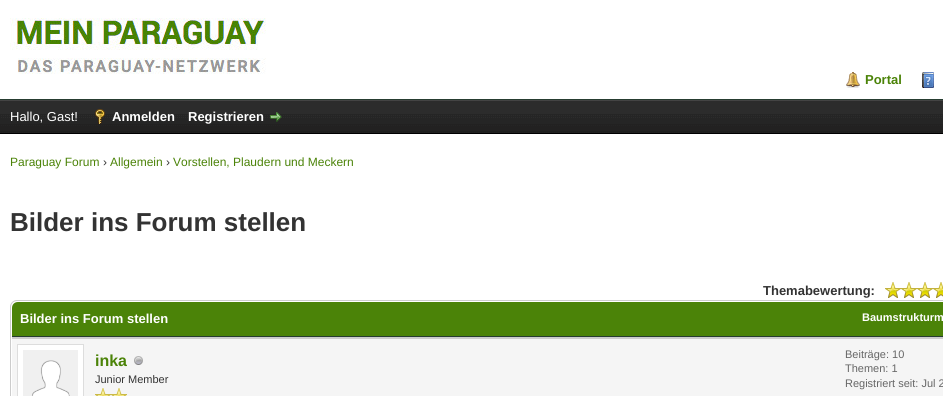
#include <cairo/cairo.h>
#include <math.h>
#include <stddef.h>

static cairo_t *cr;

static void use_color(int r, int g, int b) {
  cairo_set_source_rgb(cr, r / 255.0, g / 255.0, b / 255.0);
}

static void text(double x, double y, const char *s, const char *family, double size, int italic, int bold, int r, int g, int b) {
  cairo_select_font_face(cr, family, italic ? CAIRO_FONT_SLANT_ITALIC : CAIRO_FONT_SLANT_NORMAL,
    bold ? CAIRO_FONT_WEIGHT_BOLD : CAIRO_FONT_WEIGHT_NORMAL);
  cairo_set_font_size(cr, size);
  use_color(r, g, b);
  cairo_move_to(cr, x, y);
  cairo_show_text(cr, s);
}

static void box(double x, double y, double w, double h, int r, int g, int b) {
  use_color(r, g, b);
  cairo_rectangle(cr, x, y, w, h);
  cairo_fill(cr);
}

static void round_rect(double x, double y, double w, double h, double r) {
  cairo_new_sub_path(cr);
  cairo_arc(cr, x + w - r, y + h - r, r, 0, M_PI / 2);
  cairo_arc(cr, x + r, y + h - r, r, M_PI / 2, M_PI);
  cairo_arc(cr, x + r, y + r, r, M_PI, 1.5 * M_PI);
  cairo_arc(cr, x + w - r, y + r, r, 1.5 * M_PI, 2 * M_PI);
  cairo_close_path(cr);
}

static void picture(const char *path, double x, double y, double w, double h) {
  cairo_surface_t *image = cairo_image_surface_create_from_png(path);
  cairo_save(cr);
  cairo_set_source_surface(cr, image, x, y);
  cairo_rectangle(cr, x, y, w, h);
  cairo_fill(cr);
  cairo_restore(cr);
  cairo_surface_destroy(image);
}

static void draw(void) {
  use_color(255, 255, 255);
  cairo_paint(cr);
  box(0, 99, 943, 1, 38, 60, 48);
  picture("img_01.png", 10, 18, 256, 56);
  picture("img_02.png", 846, 72, 14, 16);
  picture("img_03.png", 922, 72, 12, 16);
  picture("img_04.png", 0, 101, 943, 32);
  box(0, 100, 943, 1, 68, 68, 68);
  box(0, 133, 943, 1, 0, 0, 0);
  picture("img_05.png", 95, 109, 10, 15);
  picture("img_06.png", 270, 112, 12, 10);
  picture("img_07.png", 885, 282, 58, 16);
  picture("img_08.png", 885, 282, 58, 16);
  round_rect(10.5, 300.5, 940, 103, 6.5);
  use_color(204, 204, 204);
  cairo_set_line_width(cr, 1);
  cairo_stroke(cr);
  use_color(75, 131, 8);
  cairo_new_path(cr);
  cairo_move_to(cr, 18, 302);
  cairo_line_to(cr, 943, 302);
  cairo_curve_to(cr, 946.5, 302, 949, 304.5, 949, 308);
  cairo_line_to(cr, 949, 337);
  cairo_line_to(cr, 12, 337);
  cairo_line_to(cr, 12, 308);
  cairo_curve_to(cr, 12, 304.5, 14.5, 302, 18, 302);
  cairo_close_path(cr);
  cairo_fill(cr);
  box(12, 336, 931, 1, 38, 60, 48);
  box(12, 339, 931, 57, 245, 245, 245);
  box(12, 337, 931, 2, 204, 204, 204);
  use_color(255, 255, 255);
  cairo_rectangle(cr, 17.5, 344.5, 66, 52);
  cairo_fill_preserve(cr);
  use_color(221, 221, 221);
  cairo_stroke(cr);
  picture("img_09.png", 23, 350, 55, 46);
  picture("img_10.png", 134, 356, 9, 9);
  picture("img_11.png", 95, 388, 16, 8);
  picture("img_11.png", 111, 388, 16, 8);
  text(865, 84, "Portal", "Liberation Sans", 13, 0, 1, 75, 131, 8);
  text(10, 121, "Hallo, Gast!", "Liberation Sans", 13, 0, 0, 255, 255, 255);
  text(112, 121, "Anmelden", "Liberation Sans", 13, 0, 1, 255, 255, 255);
  text(188, 121, "Registrieren", "Liberation Sans", 13, 0, 1, 255, 255, 255);
  text(10, 166, "Paraguay Forum", "Liberation Sans", 12, 0, 0, 75, 131, 8);
  text(103, 166, "›", "Liberation Sans", 12, 0, 0, 51, 51, 51);
  text(110, 166, "Allgemein", "Liberation Sans", 12, 0, 0, 75, 131, 8);
  text(166, 166, "›", "Liberation Sans", 12, 0, 0, 51, 51, 51);
  text(173, 166, "Vorstellen, Plaudern und Meckern", "Liberation Sans", 12, 0, 0, 75, 131, 8);
  text(10, 231, "Bilder ins Forum stellen", "Liberation Sans", 26, 0, 1, 51, 51, 51);
  text(763, 295, "Themabewertung:", "Liberation Sans", 13, 0, 1, 51, 51, 51);
  text(20, 323, "Bilder ins Forum stellen", "Liberation Sans", 13, 0, 1, 255, 255, 255);
  text(862, 321, "Baumstrukturm", "Liberation Sans", 11, 0, 1, 255, 255, 255);
  text(95, 366, "inka", "Liberation Sans", 16, 0, 1, 75, 131, 8);
  text(95, 383, "Junior Member", "Liberation Sans", 11, 0, 0, 51, 51, 51);
  text(845, 358, "Beiträge: 10", "Liberation Sans", 11, 0, 0, 102, 102, 102);
  text(845, 372, "Themen: 1", "Liberation Sans", 11, 0, 0, 102, 102, 102);
  text(845, 387, "Registriert seit: Jul 2", "Liberation Sans", 11, 0, 0, 102, 102, 102);
}

int main(void) {
  cairo_surface_t *surface = cairo_image_surface_create(CAIRO_FORMAT_RGB24, 943, 396);
  cr = cairo_create(surface);
  cairo_font_options_t *options = cairo_font_options_create();
  cairo_font_options_set_hint_metrics(options, CAIRO_HINT_METRICS_OFF);
  cairo_font_options_set_hint_style(options, CAIRO_HINT_STYLE_NONE);
  cairo_set_font_options(cr, options);
  cairo_set_miter_limit(cr, 4);
  draw();
  cairo_surface_write_to_png(surface, "out.png");
  cairo_font_options_destroy(options);
  cairo_destroy(cr);
  cairo_surface_destroy(surface);
  return 0;
}
